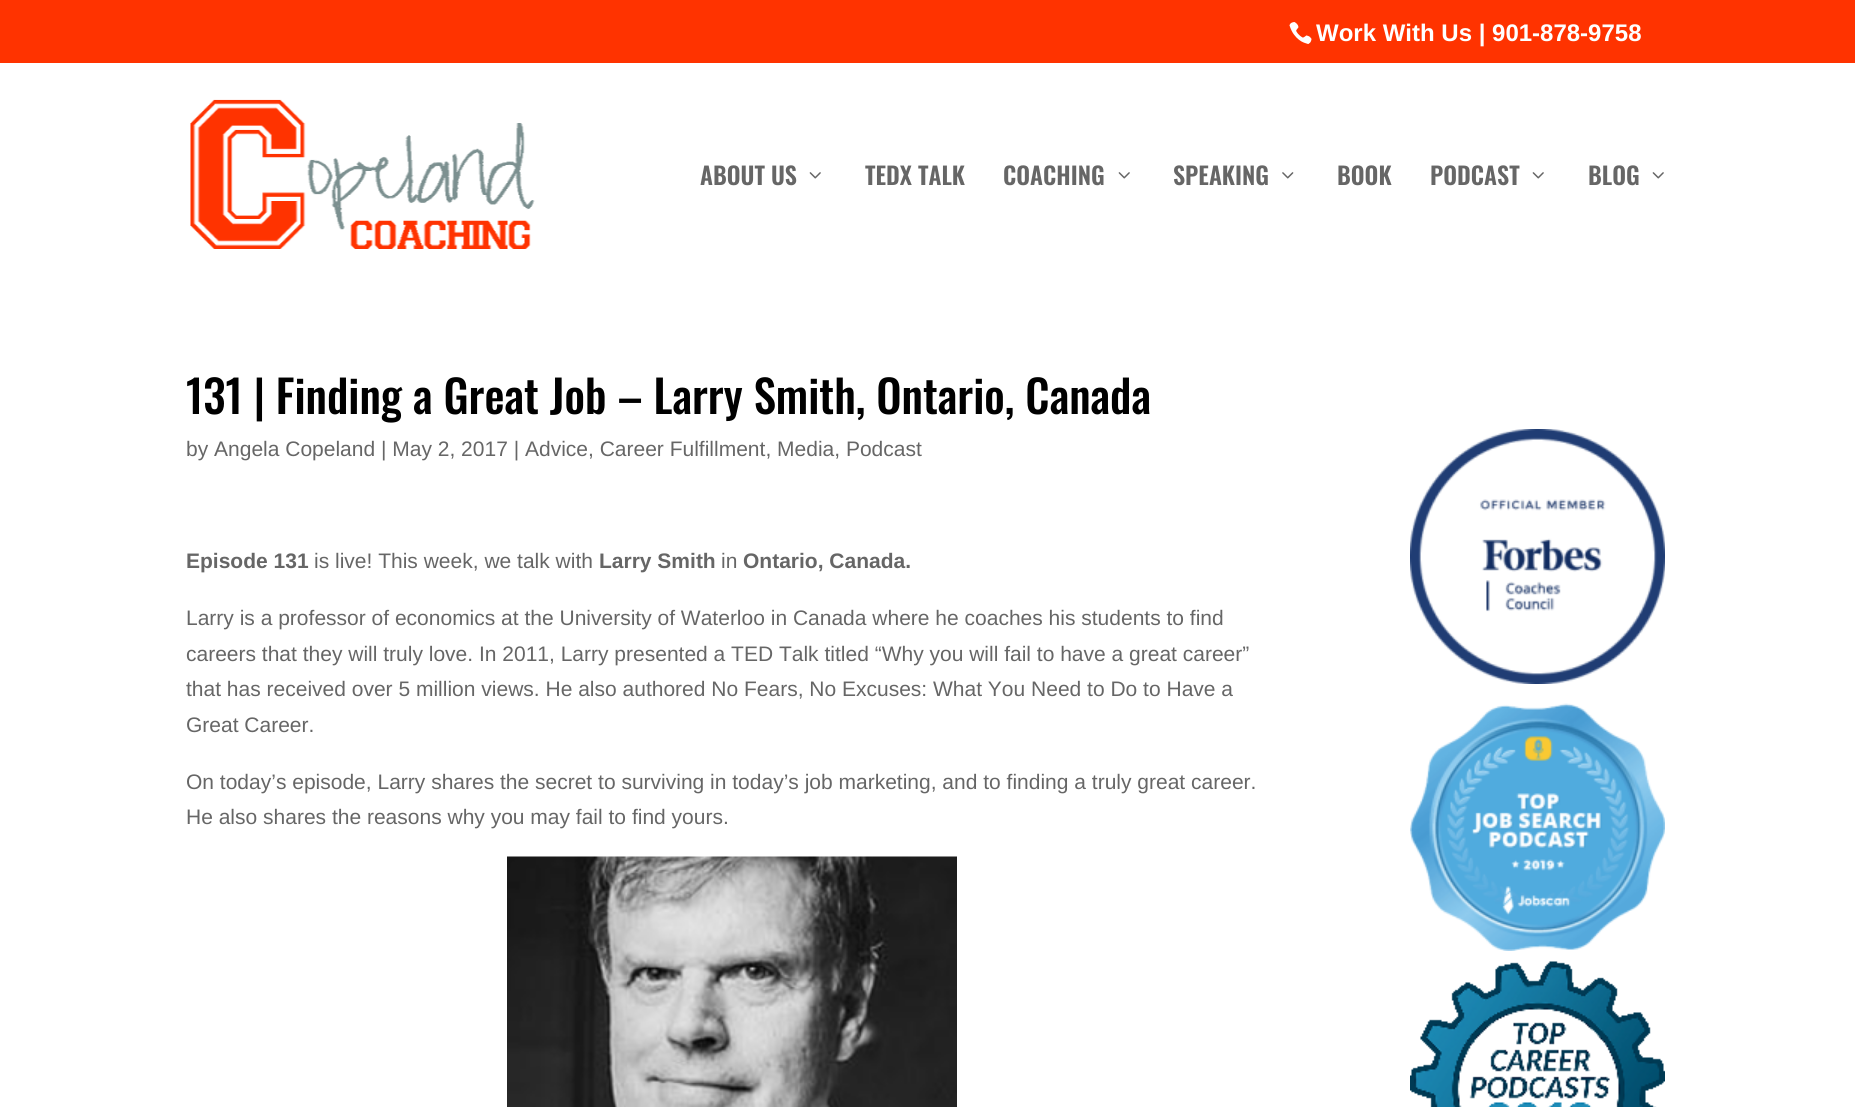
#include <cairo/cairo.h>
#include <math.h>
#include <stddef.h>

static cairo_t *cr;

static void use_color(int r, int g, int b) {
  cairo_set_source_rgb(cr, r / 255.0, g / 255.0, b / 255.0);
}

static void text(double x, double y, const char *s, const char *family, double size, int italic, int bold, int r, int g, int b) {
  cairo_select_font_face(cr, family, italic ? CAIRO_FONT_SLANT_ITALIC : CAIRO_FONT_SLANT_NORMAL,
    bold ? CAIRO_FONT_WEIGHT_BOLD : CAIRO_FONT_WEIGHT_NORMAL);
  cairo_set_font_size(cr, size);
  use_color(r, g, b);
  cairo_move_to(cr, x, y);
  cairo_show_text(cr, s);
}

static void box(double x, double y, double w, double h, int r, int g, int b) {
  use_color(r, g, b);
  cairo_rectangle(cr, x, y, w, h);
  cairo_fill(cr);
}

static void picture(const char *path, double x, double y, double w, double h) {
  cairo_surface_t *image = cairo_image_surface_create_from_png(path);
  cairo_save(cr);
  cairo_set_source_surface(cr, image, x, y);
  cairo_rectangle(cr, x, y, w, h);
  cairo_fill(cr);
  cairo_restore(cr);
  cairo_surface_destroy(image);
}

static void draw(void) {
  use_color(255, 255, 255);
  cairo_paint(cr);
  box(0, 0, 1855, 63, 255, 51, 0);
  picture("img_01.png", 1289, 22, 23, 22);
  picture("img_02.png", 190, 99, 345, 150);
  picture("img_03.png", 809, 172, 12, 7);
  picture("img_03.png", 1118, 172, 12, 7);
  picture("img_04.png", 1282, 172, 12, 7);
  picture("img_03.png", 1532, 172, 12, 7);
  picture("img_03.png", 1652, 172, 12, 7);
  picture("img_05.png", 507, 856, 450, 251);
  picture("img_06.png", 1410, 429, 255, 255);
  picture("img_07.png", 1410, 703, 255, 248);
  picture("img_08.png", 1410, 961, 255, 146);
  text(1316, 41, "Work With Us | 901-878-9758", "Liberation Sans", 24, 0, 1, 255, 255, 255);
  text(700, 185, "ABOUT US", "Oswald SemiBold", 24, 0, 0, 102, 102, 102);
  text(865, 185, "TEDX TALK", "Oswald SemiBold", 24, 0, 0, 102, 102, 102);
  text(1003, 185, "COACHING", "Oswald SemiBold", 24, 0, 0, 102, 102, 102);
  text(1173, 185, "SPEAKING", "Oswald SemiBold", 24, 0, 0, 102, 102, 102);
  text(1337, 185, "BOOK", "Oswald SemiBold", 24, 0, 0, 102, 102, 102);
  text(1430, 185, "PODCAST", "Oswald SemiBold", 24, 0, 0, 102, 102, 102);
  text(1588, 185, "BLOG", "Oswald SemiBold", 24, 0, 0, 102, 102, 102);
  text(186, 414, "131 | Finding a Great Job – Larry Smith, Ontario, Canada", "Oswald Medium", 45, 0, 0, 0, 0, 0);
  text(186, 456, "by Angela Copeland | May 2, 2017 | Advice, Career Fulfillment, Media, Podcast", "Liberation Sans", 21, 0, 0, 102, 102, 102);
  text(186, 568, "Episode 131", "Liberation Sans", 21, 0, 1, 102, 102, 102);
  text(314, 568, "is live! This week, we talk with", "Liberation Sans", 21, 0, 0, 102, 102, 102);
  text(599, 568, "Larry Smith", "Liberation Sans", 21, 0, 1, 102, 102, 102);
  text(721, 568, "in", "Liberation Sans", 21, 0, 0, 102, 102, 102);
  text(743, 568, "Ontario, Canada.", "Liberation Sans", 21, 0, 1, 102, 102, 102);
  text(186, 625, "Larry is a professor of economics at the University of Waterloo in Canada where he coaches his students to find", "Liberation Sans", 21, 0, 0, 102, 102, 102);
  text(186, 661, "careers that they will truly love. In 2011, Larry presented a TED Talk titled “Why you will fail to have a great career”", "Liberation Sans", 21, 0, 0, 102, 102, 102);
  text(186, 696, "that has received over 5 million views. He also authored No Fears, No Excuses: What You Need to Do to Have a", "Liberation Sans", 21, 0, 0, 102, 102, 102);
  text(186, 732, "Great Career.", "Liberation Sans", 21, 0, 0, 102, 102, 102);
  text(186, 789, "On today’s episode, Larry shares the secret to surviving in today’s job marketing, and to finding a truly great career.", "Liberation Sans", 21, 0, 0, 102, 102, 102);
  text(186, 824, "He also shares the reasons why you may fail to find yours.", "Liberation Sans", 21, 0, 0, 102, 102, 102);
}

int main(void) {
  cairo_surface_t *surface = cairo_image_surface_create(CAIRO_FORMAT_RGB24, 1855, 1107);
  cr = cairo_create(surface);
  cairo_font_options_t *options = cairo_font_options_create();
  cairo_font_options_set_hint_metrics(options, CAIRO_HINT_METRICS_OFF);
  cairo_font_options_set_hint_style(options, CAIRO_HINT_STYLE_NONE);
  cairo_set_font_options(cr, options);
  cairo_set_miter_limit(cr, 4);
  draw();
  cairo_surface_write_to_png(surface, "out.png");
  cairo_font_options_destroy(options);
  cairo_destroy(cr);
  cairo_surface_destroy(surface);
  return 0;
}
